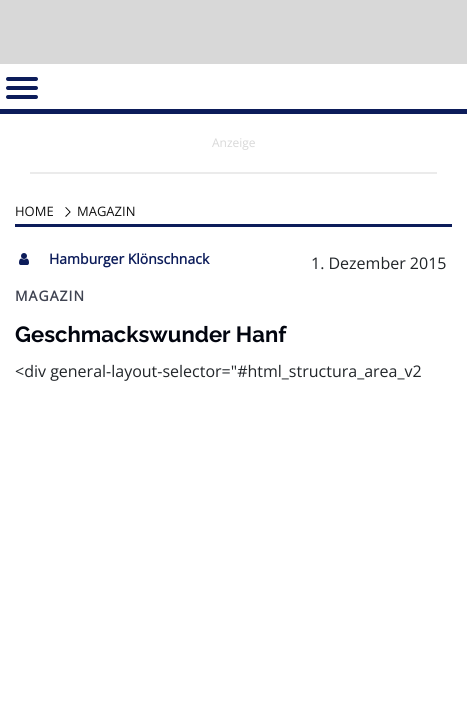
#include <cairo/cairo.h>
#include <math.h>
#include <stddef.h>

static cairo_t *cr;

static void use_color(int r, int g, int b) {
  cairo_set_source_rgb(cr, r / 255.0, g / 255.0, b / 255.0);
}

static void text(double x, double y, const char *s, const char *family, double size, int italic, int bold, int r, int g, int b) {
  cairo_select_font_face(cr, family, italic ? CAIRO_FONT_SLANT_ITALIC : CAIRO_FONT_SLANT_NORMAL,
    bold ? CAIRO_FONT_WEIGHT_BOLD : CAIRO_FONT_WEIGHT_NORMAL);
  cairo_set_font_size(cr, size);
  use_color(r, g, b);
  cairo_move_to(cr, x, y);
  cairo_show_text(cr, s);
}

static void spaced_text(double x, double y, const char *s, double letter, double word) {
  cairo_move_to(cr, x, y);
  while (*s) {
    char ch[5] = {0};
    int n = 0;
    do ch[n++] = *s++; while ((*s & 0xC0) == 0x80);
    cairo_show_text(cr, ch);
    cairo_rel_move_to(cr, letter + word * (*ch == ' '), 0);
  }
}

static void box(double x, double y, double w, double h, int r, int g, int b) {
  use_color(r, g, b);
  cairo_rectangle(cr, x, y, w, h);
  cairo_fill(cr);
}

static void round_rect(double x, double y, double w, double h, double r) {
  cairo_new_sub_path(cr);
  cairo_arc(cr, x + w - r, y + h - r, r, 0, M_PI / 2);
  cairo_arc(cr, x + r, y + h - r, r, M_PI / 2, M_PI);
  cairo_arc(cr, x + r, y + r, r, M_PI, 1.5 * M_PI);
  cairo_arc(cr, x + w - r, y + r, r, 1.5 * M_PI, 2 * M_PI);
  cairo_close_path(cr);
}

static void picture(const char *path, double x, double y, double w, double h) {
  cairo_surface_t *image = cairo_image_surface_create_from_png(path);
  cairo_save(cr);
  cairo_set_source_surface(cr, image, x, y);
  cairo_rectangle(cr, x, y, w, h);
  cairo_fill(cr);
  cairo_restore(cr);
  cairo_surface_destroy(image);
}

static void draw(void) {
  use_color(216, 216, 216);
  cairo_paint(cr);
  box(0, 64, 467, 647, 255, 255, 255);
  box(0, 109, 467, 5, 12, 28, 90);
  round_rect(6, 77, 32, 4, 2);
  cairo_fill(cr);
  round_rect(6, 86, 32, 4, 2);
  cairo_fill(cr);
  round_rect(6, 95, 32, 4, 2);
  cairo_fill(cr);
  box(30, 172, 407, 2, 235, 235, 235);
  box(15, 224, 437, 3, 12, 28, 90);
  picture("img_01.png", 65, 207, 6, 10);
  picture("img_02.png", 19, 253, 10, 12);
  text(212, 147, "Anzeige", "Open Sans", 12, 0, 0, 216, 216, 216);
  text(15, 216, "HOME", "Open Sans", 13, 0, 0, 17, 17, 17);
  text(77, 216, "MAGAZIN", "Open Sans", 13, 0, 0, 17, 17, 17);
  text(49, 264, "Hamburger Klönschnack", "Open Sans", 14, 0, 1, 12, 28, 90);
  text(311, 269, "1. Dezember 2015", "Open Sans", 16, 0, 0, 33, 37, 41);
  cairo_select_font_face(cr, "Open Sans", CAIRO_FONT_SLANT_NORMAL, CAIRO_FONT_WEIGHT_BOLD);
  cairo_set_font_size(cr, 14);
  use_color(63, 67, 81);
  spaced_text(15, 301, "MAGAZIN", 1, 0);
  text(15, 342, "Geschmackswunder Hanf", "Raleway", 22, 0, 1, 2, 5, 15);
  text(15, 377, "<div general-layout-selector=\"#html_structura_area_v2", "Open Sans", 16, 0, 0, 33, 37, 41);
}

int main(void) {
  cairo_surface_t *surface = cairo_image_surface_create(CAIRO_FORMAT_RGB24, 467, 711);
  cr = cairo_create(surface);
  cairo_font_options_t *options = cairo_font_options_create();
  cairo_font_options_set_hint_metrics(options, CAIRO_HINT_METRICS_OFF);
  cairo_font_options_set_hint_style(options, CAIRO_HINT_STYLE_NONE);
  cairo_set_font_options(cr, options);
  cairo_set_miter_limit(cr, 4);
  draw();
  cairo_surface_write_to_png(surface, "out.png");
  cairo_font_options_destroy(options);
  cairo_destroy(cr);
  cairo_surface_destroy(surface);
  return 0;
}
